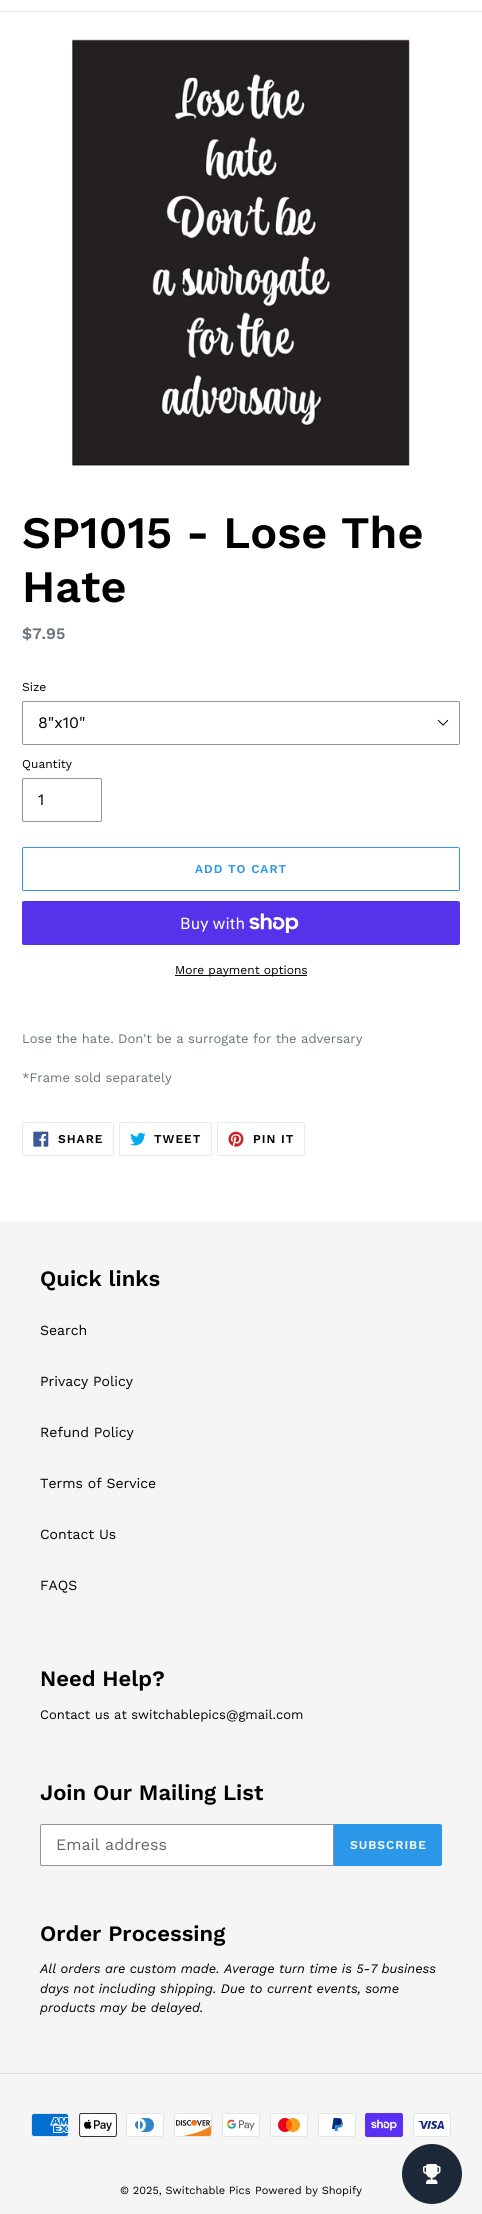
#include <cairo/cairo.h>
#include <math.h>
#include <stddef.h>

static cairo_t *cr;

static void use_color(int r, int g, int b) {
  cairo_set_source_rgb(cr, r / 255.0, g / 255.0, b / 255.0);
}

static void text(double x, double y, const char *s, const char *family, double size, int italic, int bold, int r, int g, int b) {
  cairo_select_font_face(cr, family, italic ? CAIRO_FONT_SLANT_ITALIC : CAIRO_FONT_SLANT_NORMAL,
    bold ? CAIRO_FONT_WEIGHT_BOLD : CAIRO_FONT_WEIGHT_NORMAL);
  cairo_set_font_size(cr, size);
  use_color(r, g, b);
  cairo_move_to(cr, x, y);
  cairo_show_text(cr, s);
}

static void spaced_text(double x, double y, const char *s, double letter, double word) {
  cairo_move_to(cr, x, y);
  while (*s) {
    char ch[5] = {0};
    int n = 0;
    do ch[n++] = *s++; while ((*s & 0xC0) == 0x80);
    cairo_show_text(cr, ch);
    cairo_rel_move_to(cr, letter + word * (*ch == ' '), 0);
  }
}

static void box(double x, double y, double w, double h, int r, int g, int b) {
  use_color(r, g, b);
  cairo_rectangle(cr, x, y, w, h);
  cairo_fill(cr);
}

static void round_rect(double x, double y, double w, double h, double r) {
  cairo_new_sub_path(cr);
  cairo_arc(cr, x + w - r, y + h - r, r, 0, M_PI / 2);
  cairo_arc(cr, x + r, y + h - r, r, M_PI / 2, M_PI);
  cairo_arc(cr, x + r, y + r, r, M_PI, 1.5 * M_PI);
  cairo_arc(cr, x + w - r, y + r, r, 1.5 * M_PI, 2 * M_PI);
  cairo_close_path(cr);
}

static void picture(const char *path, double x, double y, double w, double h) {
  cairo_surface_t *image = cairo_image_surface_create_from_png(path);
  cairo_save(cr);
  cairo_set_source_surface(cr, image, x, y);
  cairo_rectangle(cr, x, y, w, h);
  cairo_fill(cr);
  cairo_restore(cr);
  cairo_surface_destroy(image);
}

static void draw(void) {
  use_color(255, 255, 255);
  cairo_paint(cr);
  box(0, 11, 482, 1, 232, 233, 235);
  picture("img_01.png", 72, 38, 338, 428);
  picture("img_02.png", 437, 719, 12, 7);
  round_rect(22.5, 701.5, 437, 43, 1.5);
  use_color(148, 148, 148);
  cairo_set_line_width(cr, 1);
  cairo_stroke(cr);
  round_rect(22.5, 778.5, 79, 43, 1.5);
  cairo_stroke(cr);
  round_rect(22.5, 847.5, 437, 43, 1.5);
  use_color(42, 151, 232);
  cairo_stroke(cr);
  use_color(84, 51, 235);
  round_rect(22, 901, 438, 44, 2);
  cairo_fill(cr);
  picture("img_03.png", 249, 913, 50, 20);
  box(175, 975, 132, 1, 0, 0, 0);
  round_rect(22.5, 1122.5, 91, 33, 1.5);
  use_color(232, 233, 235);
  cairo_stroke(cr);
  picture("img_04.png", 33, 1131, 16, 16);
  round_rect(119.5, 1122.5, 92, 33, 1.5);
  cairo_stroke(cr);
  picture("img_05.png", 130, 1132, 16, 14);
  round_rect(217.5, 1122.5, 87, 33, 1.5);
  cairo_stroke(cr);
  picture("img_06.png", 228, 1131, 16, 16);
  box(0, 1221, 482, 993, 245, 245, 245);
  use_color(255, 255, 255);
  cairo_new_path(cr);
  cairo_move_to(cr, 42, 1824.5);
  cairo_line_to(cr, 333.5, 1824.5);
  cairo_line_to(cr, 333.5, 1865.5);
  cairo_line_to(cr, 42, 1865.5);
  cairo_curve_to(cr, 41, 1865.5, 40.5, 1865, 40.5, 1864);
  cairo_line_to(cr, 40.5, 1826);
  cairo_curve_to(cr, 40.5, 1825, 41, 1824.5, 42, 1824.5);
  cairo_close_path(cr);
  cairo_fill_preserve(cr);
  use_color(148, 148, 148);
  cairo_stroke(cr);
  use_color(42, 151, 232);
  cairo_new_path(cr);
  cairo_move_to(cr, 334, 1824);
  cairo_line_to(cr, 440, 1824);
  cairo_curve_to(cr, 441, 1824, 442, 1825, 442, 1826);
  cairo_line_to(cr, 442, 1864);
  cairo_curve_to(cr, 442, 1865, 441, 1866, 440, 1866);
  cairo_line_to(cr, 334, 1866);
  cairo_close_path(cr);
  cairo_fill(cr);
  box(0, 2073, 482, 1, 220, 220, 220);
  picture("img_07.png", 31, 2113, 38, 24);
  picture("img_08.png", 79, 2113, 38, 24);
  picture("img_09.png", 126, 2113, 38, 24);
  picture("img_10.png", 174, 2113, 38, 24);
  picture("img_11.png", 222, 2113, 38, 24);
  picture("img_12.png", 270, 2113, 38, 24);
  picture("img_13.png", 318, 2113, 38, 24);
  picture("img_14.png", 365, 2113, 38, 24);
  picture("img_15.png", 413, 2113, 38, 24);
  use_color(29, 41, 57);
  cairo_arc(cr, 432, 2174, 30, 0, 2 * M_PI);
  cairo_fill(cr);
  picture("img_16.png", 423, 2164, 18, 20);
  text(22, 548, "SP1015 - Lose The", "Work Sans SemiBold", 45, 0, 0, 0, 0, 0);
  text(22, 602, "Hate", "Work Sans SemiBold", 45, 0, 0, 0, 0, 0);
  text(22, 639, "$7.95", "Work Sans SemiBold", 16, 0, 0, 105, 114, 123);
  text(22, 691, "Size", "Work Sans", 12, 0, 0, 0, 0, 0);
  text(38, 728, "8\"x10\"", "Work Sans", 16, 0, 0, 0, 0, 0);
  text(22, 768, "Quantity", "Work Sans", 12, 0, 0, 0, 0, 0);
  text(38, 805, "1", "Work Sans", 16, 0, 0, 0, 0, 0);
  cairo_select_font_face(cr, "Work Sans SemiBold", CAIRO_FONT_SLANT_NORMAL, CAIRO_FONT_WEIGHT_NORMAL);
  cairo_set_font_size(cr, 12);
  use_color(42, 151, 232);
  spaced_text(195, 873, "ADD TO CART", 1, 0);
  text(180, 929, "Buy with", "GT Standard", 16, 0, 0, 255, 255, 255);
  text(175, 974, "More payment options", "Work Sans", 12, 0, 0, 0, 0, 0);
  text(22, 1043, "Lose the hate. Don't be a surrogate for the adversary", "Work Sans", 13, 0, 0, 105, 114, 123);
  text(22, 1082, "*Frame sold separately", "Work Sans", 13, 0, 0, 105, 114, 123);
  cairo_select_font_face(cr, "Work Sans SemiBold", CAIRO_FONT_SLANT_NORMAL, CAIRO_FONT_WEIGHT_NORMAL);
  cairo_set_font_size(cr, 12);
  use_color(0, 0, 0);
  spaced_text(58, 1143, "SHARE", 1, 0);
  spaced_text(154, 1143, "TWEET", 1, 0);
  spaced_text(253, 1143, "PIN IT", 1, 0);
  text(40, 1286, "Quick links", "Work Sans SemiBold", 22, 0, 0, 0, 0, 0);
  text(40, 1335, "Search", "Work Sans", 14, 0, 0, 0, 0, 0);
  text(40, 1386, "Privacy Policy", "Work Sans", 14, 0, 0, 0, 0, 0);
  text(40, 1437, "Refund Policy", "Work Sans", 14, 0, 0, 0, 0, 0);
  text(40, 1488, "Terms of Service", "Work Sans", 14, 0, 0, 0, 0, 0);
  text(40, 1539, "Contact Us", "Work Sans", 14, 0, 0, 0, 0, 0);
  text(40, 1590, "FAQS", "Work Sans", 14, 0, 0, 0, 0, 0);
  text(40, 1686, "Need Help?", "Work Sans SemiBold", 22, 0, 0, 0, 0, 0);
  text(40, 1719, "Contact us at switchablepics@gmail.com", "Work Sans", 13, 0, 0, 0, 0, 0);
  text(40, 1800, "Join Our Mailing List", "Work Sans SemiBold", 22, 0, 0, 0, 0, 0);
  text(56, 1850, "Email address", "Work Sans", 16, 0, 0, 102, 102, 102);
  cairo_select_font_face(cr, "Work Sans SemiBold", CAIRO_FONT_SLANT_NORMAL, CAIRO_FONT_WEIGHT_NORMAL);
  cairo_set_font_size(cr, 12);
  use_color(255, 255, 255);
  spaced_text(350, 1849, "SUBSCRIBE", 1, 0);
  text(40, 1941, "Order Processing", "Work Sans SemiBold", 22, 0, 0, 0, 0, 0);
  text(40, 1973, "All orders are custom made. Average turn time is 5-7 business", "Work Sans", 13, 1, 0, 0, 0, 0);
  text(40, 1993, "days not including shipping. Due to current events, some", "Work Sans", 13, 1, 0, 0, 0, 0);
  text(40, 2012, "products may be delayed.", "Work Sans", 13, 1, 0, 0, 0, 0);
  text(120, 2194, "© 2025, Switchable Pics", "Work Sans", 11, 0, 0, 0, 0, 0);
  text(255, 2194, "Powered by Shopify", "Work Sans", 11, 0, 0, 0, 0, 0);
}

int main(void) {
  cairo_surface_t *surface = cairo_image_surface_create(CAIRO_FORMAT_RGB24, 482, 2214);
  cr = cairo_create(surface);
  cairo_font_options_t *options = cairo_font_options_create();
  cairo_font_options_set_hint_metrics(options, CAIRO_HINT_METRICS_OFF);
  cairo_font_options_set_hint_style(options, CAIRO_HINT_STYLE_NONE);
  cairo_set_font_options(cr, options);
  cairo_set_miter_limit(cr, 4);
  draw();
  cairo_surface_write_to_png(surface, "out.png");
  cairo_font_options_destroy(options);
  cairo_destroy(cr);
  cairo_surface_destroy(surface);
  return 0;
}
